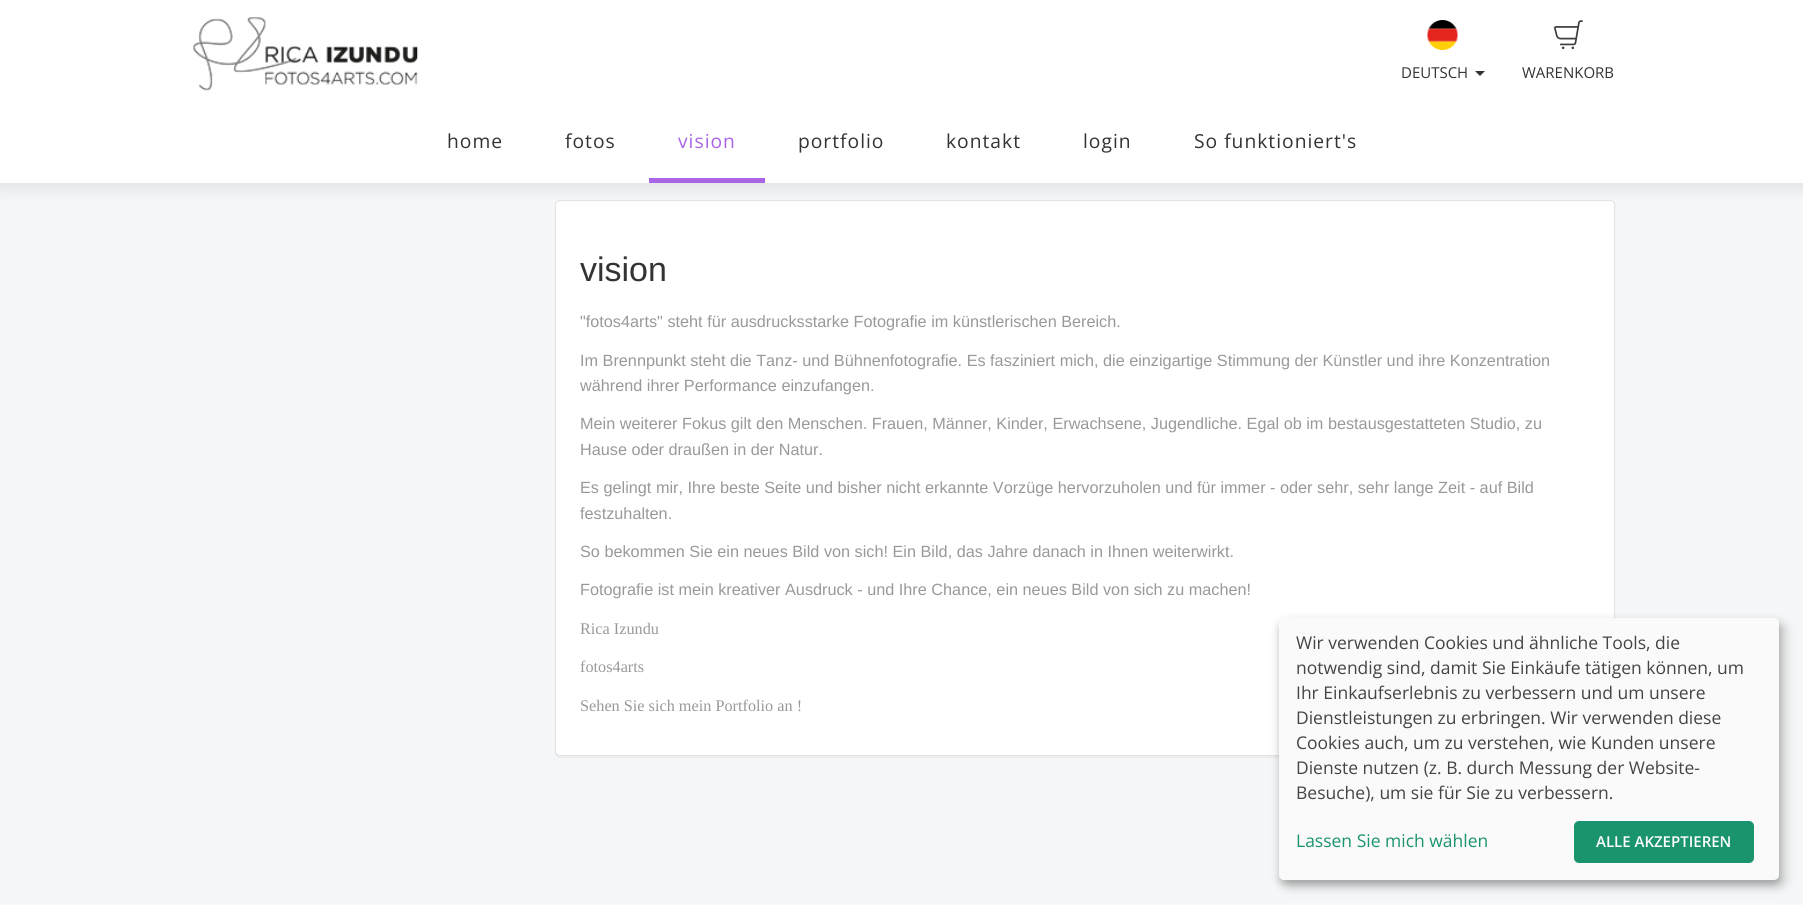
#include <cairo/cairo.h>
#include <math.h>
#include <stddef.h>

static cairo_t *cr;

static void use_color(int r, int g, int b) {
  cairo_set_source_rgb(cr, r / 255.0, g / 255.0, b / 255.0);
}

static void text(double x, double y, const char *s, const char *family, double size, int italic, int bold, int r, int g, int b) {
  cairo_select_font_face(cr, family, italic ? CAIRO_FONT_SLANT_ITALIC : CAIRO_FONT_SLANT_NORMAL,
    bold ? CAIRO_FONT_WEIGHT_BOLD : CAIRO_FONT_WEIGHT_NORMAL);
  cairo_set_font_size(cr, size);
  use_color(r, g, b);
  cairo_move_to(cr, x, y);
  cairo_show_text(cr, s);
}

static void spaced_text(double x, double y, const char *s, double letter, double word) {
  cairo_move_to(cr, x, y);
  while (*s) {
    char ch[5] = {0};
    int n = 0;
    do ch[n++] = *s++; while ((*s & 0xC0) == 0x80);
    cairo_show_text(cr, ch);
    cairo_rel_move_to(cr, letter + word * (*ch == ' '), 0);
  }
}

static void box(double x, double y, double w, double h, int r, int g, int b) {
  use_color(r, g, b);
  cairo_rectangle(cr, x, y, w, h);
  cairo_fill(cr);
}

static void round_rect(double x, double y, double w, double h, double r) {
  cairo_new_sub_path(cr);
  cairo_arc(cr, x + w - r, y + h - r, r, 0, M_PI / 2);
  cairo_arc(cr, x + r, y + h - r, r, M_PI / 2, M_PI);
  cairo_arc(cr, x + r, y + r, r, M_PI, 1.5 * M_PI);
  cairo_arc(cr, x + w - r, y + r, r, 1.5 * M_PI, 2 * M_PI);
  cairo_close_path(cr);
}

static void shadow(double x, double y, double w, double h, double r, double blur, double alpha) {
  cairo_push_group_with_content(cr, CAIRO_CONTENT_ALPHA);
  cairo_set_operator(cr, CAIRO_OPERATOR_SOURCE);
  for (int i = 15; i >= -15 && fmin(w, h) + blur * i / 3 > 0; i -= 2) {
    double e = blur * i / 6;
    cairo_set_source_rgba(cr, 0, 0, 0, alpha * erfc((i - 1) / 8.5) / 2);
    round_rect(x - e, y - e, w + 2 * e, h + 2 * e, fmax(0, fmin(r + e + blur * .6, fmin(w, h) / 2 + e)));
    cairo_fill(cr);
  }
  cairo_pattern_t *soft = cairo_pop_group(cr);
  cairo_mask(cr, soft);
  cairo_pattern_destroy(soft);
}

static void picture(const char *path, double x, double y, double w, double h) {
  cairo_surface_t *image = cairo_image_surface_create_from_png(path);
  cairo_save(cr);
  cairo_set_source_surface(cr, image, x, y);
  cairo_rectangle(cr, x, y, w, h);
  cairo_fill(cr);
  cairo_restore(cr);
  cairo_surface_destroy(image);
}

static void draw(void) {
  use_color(246, 247, 248);
  cairo_paint(cr);
  use_color(0, 0, 0);
  shadow(555, 201, 1060, 557, 5, 0.5, 0.05);
  use_color(255, 255, 255);
  round_rect(555.5, 200.5, 1059, 555, 4.5);
  cairo_fill_preserve(cr);
  use_color(227, 227, 227);
  cairo_set_line_width(cr, 1);
  cairo_stroke(cr);
  use_color(0, 0, 0);
  shadow(-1, 99, 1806, 85, 0, 10.5, 0.14);
  box(0, 0, 1803, 183, 255, 255, 255);
  picture("img_01.png", 193, 17, 226, 74);
  picture("img_02.png", 1427, 20, 31, 30);
  use_color(51, 51, 51);
  cairo_new_path(cr);
  cairo_move_to(cr, 1475, 71);
  cairo_line_to(cr, 1485, 71);
  cairo_line_to(cr, 1480, 76);
  cairo_close_path(cr);
  cairo_fill(cr);
  picture("img_03.png", 1554, 20, 29, 30);
  box(649, 178, 116, 5, 170, 101, 230);
  use_color(0, 0, 0);
  shadow(1285, 624, 500, 262, 5, 6, 0.19);
  shadow(1279, 623, 500, 262, 5, 4, 0.2);
  use_color(250, 250, 250);
  round_rect(1279, 618, 500, 262, 5);
  cairo_fill(cr);
  use_color(26, 147, 111);
  round_rect(1574, 821, 180, 42, 5);
  cairo_fill(cr);
  text(1401, 78, "DEUTSCH", "Open Sans", 15, 0, 0, 51, 51, 51);
  text(1522, 78, "WARENKORB", "Open Sans", 15, 0, 0, 51, 51, 51);
  cairo_set_font_size(cr, 19.25);
  spaced_text(447, 148, "home", 1, 0);
  spaced_text(565, 148, "fotos", 1, 0);
  use_color(170, 101, 230);
  spaced_text(678, 148, "vision", 1, 0);
  use_color(51, 51, 51);
  spaced_text(798, 148, "portfolio", 1, 0);
  spaced_text(946, 148, "kontakt", 1, 0);
  spaced_text(1083, 148, "login", 1, 0);
  spaced_text(1194, 148, "So funktioniert's", 1, 0);
  text(580, 281, "vision", "Liberation Sans", 34, 0, 0, 51, 51, 51);
  text(580, 327, "\"fotos4arts\" steht für ausdrucksstarke Fotografie im künstlerischen Bereich.", "Liberation Sans", 16.25, 0, 0, 153, 153, 153);
  text(580, 366, "Im Brennpunkt steht die Tanz- und Bühnenfotografie. Es fasziniert mich, die einzigartige Stimmung der Künstler und ihre Konzentration", "Liberation Sans", 16.25, 0, 0, 153, 153, 153);
  text(580, 391, "während ihrer Performance einzufangen.", "Liberation Sans", 16.25, 0, 0, 153, 153, 153);
  text(580, 429, "Mein weiterer Fokus gilt den Menschen. Frauen, Männer, Kinder, Erwachsene, Jugendliche. Egal ob im bestausgestatteten Studio, zu", "Liberation Sans", 16.25, 0, 0, 153, 153, 153);
  text(580, 455, "Hause oder draußen in der Natur.", "Liberation Sans", 16.25, 0, 0, 153, 153, 153);
  text(580, 493, "Es gelingt mir, Ihre beste Seite und bisher nicht erkannte Vorzüge hervorzuholen und für immer - oder sehr, sehr lange Zeit - auf Bild", "Liberation Sans", 16.25, 0, 0, 153, 153, 153);
  text(580, 519, "festzuhalten.", "Liberation Sans", 16.25, 0, 0, 153, 153, 153);
  text(580, 557, "So bekommen Sie ein neues Bild von sich! Ein Bild, das Jahre danach in Ihnen weiterwirkt.", "Liberation Sans", 16.25, 0, 0, 153, 153, 153);
  text(580, 595, "Fotografie ist mein kreativer Ausdruck - und Ihre Chance, ein neues Bild von sich zu machen!", "Liberation Sans", 16.25, 0, 0, 153, 153, 153);
  text(580, 634, "Rica Izundu", "Liberation Serif", 16.25, 0, 0, 153, 153, 153);
  text(580, 672, "fotos4arts", "Liberation Serif", 16.25, 0, 0, 153, 153, 153);
  text(580, 711, "Sehen Sie sich mein Portfolio an !", "Liberation Serif", 16.25, 0, 0, 153, 153, 153);
  text(1296, 649, "Wir verwenden Cookies und ähnliche Tools, die", "Open Sans", 17.5, 0, 0, 68, 68, 68);
  text(1296, 674, "notwendig sind, damit Sie Einkäufe tätigen können, um", "Open Sans", 17.5, 0, 0, 68, 68, 68);
  text(1296, 699, "Ihr Einkaufserlebnis zu verbessern und um unsere", "Open Sans", 17.5, 0, 0, 68, 68, 68);
  text(1296, 724, "Dienstleistungen zu erbringen. Wir verwenden diese", "Open Sans", 17.5, 0, 0, 68, 68, 68);
  text(1296, 749, "Cookies auch, um zu verstehen, wie Kunden unsere", "Open Sans", 17.5, 0, 0, 68, 68, 68);
  text(1296, 774, "Dienste nutzen (z. B. durch Messung der Website-", "Open Sans", 17.5, 0, 0, 68, 68, 68);
  text(1296, 799, "Besuche), um sie für Sie zu verbessern.", "Open Sans", 17.5, 0, 0, 68, 68, 68);
  text(1296, 847, "Lassen Sie mich wählen", "Open Sans", 17.5, 0, 0, 26, 147, 111);
  text(1596, 847, "ALLE AKZEPTIEREN", "Open Sans SemiBold", 15, 0, 0, 255, 255, 255);
}

int main(void) {
  cairo_surface_t *surface = cairo_image_surface_create(CAIRO_FORMAT_RGB24, 1803, 905);
  cr = cairo_create(surface);
  cairo_font_options_t *options = cairo_font_options_create();
  cairo_font_options_set_hint_metrics(options, CAIRO_HINT_METRICS_OFF);
  cairo_font_options_set_hint_style(options, CAIRO_HINT_STYLE_NONE);
  cairo_set_font_options(cr, options);
  cairo_set_miter_limit(cr, 4);
  draw();
  cairo_surface_write_to_png(surface, "out.png");
  cairo_font_options_destroy(options);
  cairo_destroy(cr);
  cairo_surface_destroy(surface);
  return 0;
}
